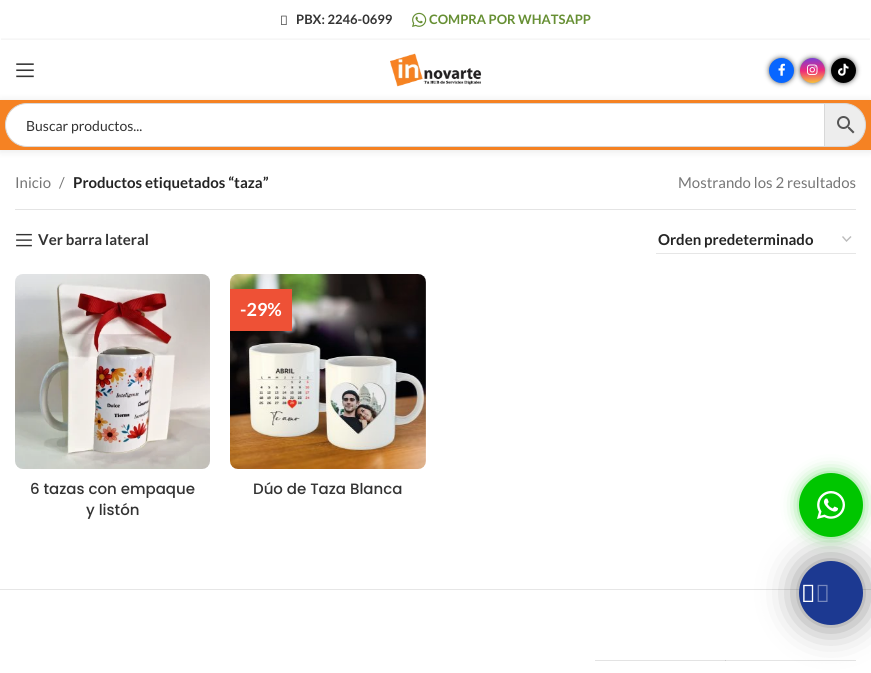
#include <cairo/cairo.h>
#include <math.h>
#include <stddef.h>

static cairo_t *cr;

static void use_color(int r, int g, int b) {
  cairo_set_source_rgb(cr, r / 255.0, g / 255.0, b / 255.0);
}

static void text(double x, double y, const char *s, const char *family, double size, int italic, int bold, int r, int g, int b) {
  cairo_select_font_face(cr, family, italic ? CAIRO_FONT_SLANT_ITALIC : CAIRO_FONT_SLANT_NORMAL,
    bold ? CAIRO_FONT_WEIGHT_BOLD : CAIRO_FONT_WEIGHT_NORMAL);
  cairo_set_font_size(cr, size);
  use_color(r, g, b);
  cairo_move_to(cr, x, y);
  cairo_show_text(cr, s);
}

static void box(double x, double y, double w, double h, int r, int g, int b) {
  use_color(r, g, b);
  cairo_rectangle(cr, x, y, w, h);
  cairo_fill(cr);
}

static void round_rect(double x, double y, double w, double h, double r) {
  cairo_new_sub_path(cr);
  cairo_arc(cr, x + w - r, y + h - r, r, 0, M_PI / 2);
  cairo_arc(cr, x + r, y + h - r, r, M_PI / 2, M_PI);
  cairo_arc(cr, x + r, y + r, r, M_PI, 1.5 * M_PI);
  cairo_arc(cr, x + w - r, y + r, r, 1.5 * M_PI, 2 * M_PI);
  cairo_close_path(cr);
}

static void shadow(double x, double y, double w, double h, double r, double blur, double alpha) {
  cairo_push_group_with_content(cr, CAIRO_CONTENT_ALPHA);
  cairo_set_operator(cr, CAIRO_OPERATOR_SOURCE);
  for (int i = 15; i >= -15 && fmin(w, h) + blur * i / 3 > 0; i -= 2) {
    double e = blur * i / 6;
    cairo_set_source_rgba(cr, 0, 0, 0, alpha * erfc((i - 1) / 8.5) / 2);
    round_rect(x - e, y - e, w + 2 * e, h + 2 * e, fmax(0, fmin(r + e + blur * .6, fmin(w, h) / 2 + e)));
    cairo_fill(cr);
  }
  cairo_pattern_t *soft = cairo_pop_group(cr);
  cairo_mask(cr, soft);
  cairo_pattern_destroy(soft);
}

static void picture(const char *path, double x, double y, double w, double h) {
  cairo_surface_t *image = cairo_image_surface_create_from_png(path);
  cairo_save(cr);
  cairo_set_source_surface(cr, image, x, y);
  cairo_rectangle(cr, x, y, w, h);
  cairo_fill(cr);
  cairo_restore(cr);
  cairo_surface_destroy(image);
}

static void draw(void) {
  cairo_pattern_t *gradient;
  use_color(255, 255, 255);
  cairo_paint(cr);
  box(595, 660, 131, 1, 227, 227, 227);
  picture("img_01.png", 281, 15, 6, 10);
  picture("img_02.png", 412, 12, 15, 15);
  cairo_save(cr);
  cairo_rectangle(cr, 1, 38, 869, 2);
  cairo_clip(cr);
  use_color(0, 0, 0);
  shadow(0, 41, 871, 60, 0, 4, 0.1);
  cairo_restore(cr);
  picture("img_03.png", 16, 63, 18, 15);
  picture("img_04.png", 390, 53, 92, 34);
  use_color(91, 91, 91);
  shadow(769, 58, 25, 25, 12.5, 2.5, 1);
  use_color(8, 102, 255);
  cairo_arc(cr, 781.5, 70.5, 12.5, 0, 2 * M_PI);
  cairo_fill(cr);
  picture("img_05.png", 778, 63, 7, 13);
  use_color(91, 91, 91);
  shadow(800, 58, 25, 25, 12.5, 2.5, 1);
  gradient = cairo_pattern_create_linear(813, 84, 812, 57);
  cairo_pattern_add_color_stop_rgba(gradient, 0, 0.976, 0.808, 0.204, 1);
  cairo_pattern_add_color_stop_rgba(gradient, 0.5, 0.933, 0.165, 0.482, 1);
  cairo_pattern_add_color_stop_rgba(gradient, 1, 0.455, 0.251, 0.863, 1);
  cairo_set_source(cr, gradient);
  cairo_pattern_destroy(gradient);
  cairo_arc(cr, 812.5, 70.5, 12.5, 0, 2 * M_PI);
  cairo_fill(cr);
  picture("img_06.png", 807, 64, 11, 11);
  use_color(91, 91, 91);
  shadow(831, 58, 25, 25, 12.5, 2.5, 1);
  use_color(1, 1, 1);
  cairo_arc(cr, 843.5, 70.5, 12.5, 0, 2 * M_PI);
  cairo_fill(cr);
  picture("img_07.png", 838, 63, 11, 13);
  use_color(0, 0, 0);
  shadow(0, 101, 871, 50, 0, 4, 0.1);
  box(0, 100, 871, 50, 245, 130, 35);
  use_color(237, 237, 237);
  cairo_new_path(cr);
  cairo_move_to(cr, 824.5, 103.5);
  cairo_line_to(cr, 844, 103.5);
  cairo_curve_to(cr, 856, 103.5, 865.5, 113, 865.5, 125);
  cairo_curve_to(cr, 865.5, 137, 856, 146.5, 844, 146.5);
  cairo_line_to(cr, 824.5, 146.5);
  cairo_close_path(cr);
  cairo_fill_preserve(cr);
  use_color(216, 216, 216);
  cairo_set_line_width(cr, 1);
  cairo_stroke(cr);
  use_color(255, 255, 255);
  cairo_new_path(cr);
  cairo_move_to(cr, 27, 103.5);
  cairo_line_to(cr, 824.5, 103.5);
  cairo_line_to(cr, 824.5, 146.5);
  cairo_line_to(cr, 27, 146.5);
  cairo_curve_to(cr, 15, 146.5, 5.5, 137, 5.5, 125);
  cairo_curve_to(cr, 5.5, 113, 15, 103.5, 27, 103.5);
  cairo_close_path(cr);
  cairo_fill_preserve(cr);
  use_color(216, 216, 216);
  cairo_stroke(cr);
  picture("img_08.png", 837, 116, 18, 18);
  box(15, 209, 841, 1, 228, 228, 228);
  picture("img_09.png", 16, 233, 16, 14);
  cairo_new_path(cr);
  cairo_move_to(cr, 842.5, 236.5);
  cairo_line_to(cr, 846.5, 241);
  cairo_line_to(cr, 851, 236.5);
  use_color(187, 187, 187);
  cairo_set_line_width(cr, 1.4);
  cairo_stroke(cr);
  box(656, 253, 200, 1, 230, 230, 230);
  picture("img_10.png", 230, 274, 196, 195);
  box(230, 289, 62, 42, 238, 81, 54);
  picture("img_11.png", 15, 274, 195, 195);
  box(0, 589, 871, 1, 230, 230, 230);
  box(725, 660, 131, 1, 228, 228, 228);
  box(725, 660, 1, 1, 203, 203, 203);
  use_color(0, 0, 0);
  shadow(799, 561, 64, 64, 32, 18, 0.5);
  use_color(28, 57, 145);
  cairo_arc(cr, 831, 593, 32, 0, 2 * M_PI);
  cairo_fill(cr);
  use_color(0, 198, 0);
  shadow(805, 479, 52, 52, 26, 10, 1);
  use_color(0, 198, 0);
  cairo_arc(cr, 831, 505, 32, 0, 2 * M_PI);
  cairo_fill(cr);
  picture("img_12.png", 817, 491, 28, 28);
  picture("img_13.png", 803, 584, 11, 18);
  picture("img_14.png", 803, 584, 25, 18);
  text(296, 24, "PBX: 2246-0699", "Lato", 13, 0, 1, 51, 51, 51);
  text(429, 24, "COMPRA POR WHATSAPP", "Lato", 13, 0, 1, 102, 143, 51);
  text(26, 131, "Buscar productos...", "Lato", 14, 0, 0, 51, 51, 51);
  text(15, 188, "Inicio", "Lato", 15, 0, 0, 118, 118, 118);
  text(59, 188, "/", "Lato", 15, 0, 0, 118, 118, 118);
  text(73, 188, "Productos etiquetados “taza”", "Lato", 15, 0, 1, 36, 36, 36);
  text(678, 188, "Mostrando los 2 resultados", "Lato", 15, 0, 0, 118, 118, 118);
  text(38, 245, "Ver barra lateral", "Lato", 15, 0, 1, 51, 51, 51);
  text(658, 245, "Orden predeterminado", "Lato", 15, 0, 1, 36, 36, 36);
  text(240, 316, "-29%", "Lato", 18, 0, 1, 255, 255, 255);
  text(253, 494, "Dúo de Taza Blanca", "Poppins Medium", 15, 0, 0, 51, 51, 51);
  text(30, 494, "6 tazas con empaque", "Poppins Medium", 15, 0, 0, 51, 51, 51);
  text(86, 515, "y listón", "Poppins Medium", 15, 0, 0, 51, 51, 51);
}

int main(void) {
  cairo_surface_t *surface = cairo_image_surface_create(CAIRO_FORMAT_RGB24, 871, 673);
  cr = cairo_create(surface);
  cairo_font_options_t *options = cairo_font_options_create();
  cairo_font_options_set_hint_metrics(options, CAIRO_HINT_METRICS_OFF);
  cairo_font_options_set_hint_style(options, CAIRO_HINT_STYLE_NONE);
  cairo_set_font_options(cr, options);
  cairo_set_miter_limit(cr, 4);
  draw();
  cairo_surface_write_to_png(surface, "out.png");
  cairo_font_options_destroy(options);
  cairo_destroy(cr);
  cairo_surface_destroy(surface);
  return 0;
}
